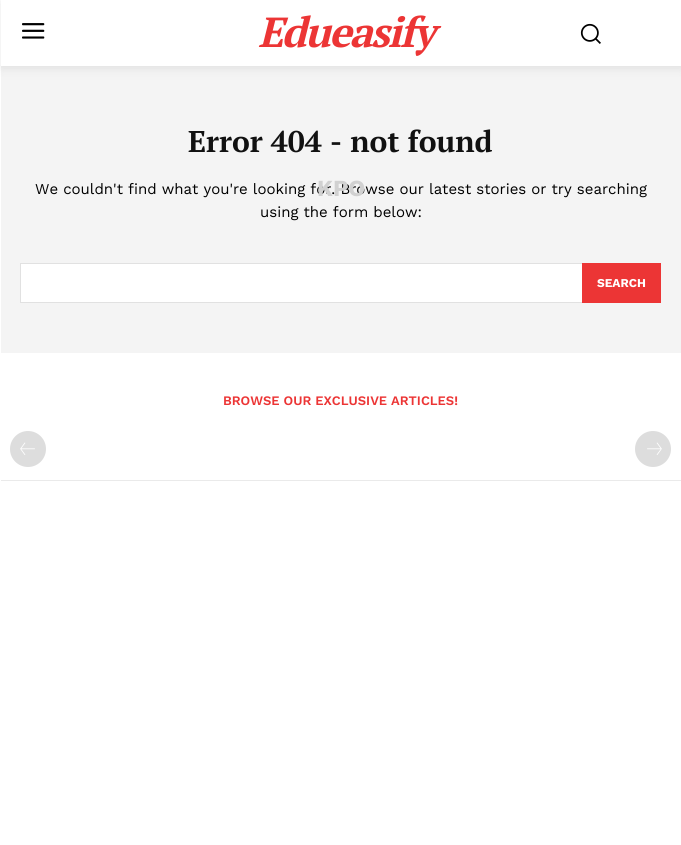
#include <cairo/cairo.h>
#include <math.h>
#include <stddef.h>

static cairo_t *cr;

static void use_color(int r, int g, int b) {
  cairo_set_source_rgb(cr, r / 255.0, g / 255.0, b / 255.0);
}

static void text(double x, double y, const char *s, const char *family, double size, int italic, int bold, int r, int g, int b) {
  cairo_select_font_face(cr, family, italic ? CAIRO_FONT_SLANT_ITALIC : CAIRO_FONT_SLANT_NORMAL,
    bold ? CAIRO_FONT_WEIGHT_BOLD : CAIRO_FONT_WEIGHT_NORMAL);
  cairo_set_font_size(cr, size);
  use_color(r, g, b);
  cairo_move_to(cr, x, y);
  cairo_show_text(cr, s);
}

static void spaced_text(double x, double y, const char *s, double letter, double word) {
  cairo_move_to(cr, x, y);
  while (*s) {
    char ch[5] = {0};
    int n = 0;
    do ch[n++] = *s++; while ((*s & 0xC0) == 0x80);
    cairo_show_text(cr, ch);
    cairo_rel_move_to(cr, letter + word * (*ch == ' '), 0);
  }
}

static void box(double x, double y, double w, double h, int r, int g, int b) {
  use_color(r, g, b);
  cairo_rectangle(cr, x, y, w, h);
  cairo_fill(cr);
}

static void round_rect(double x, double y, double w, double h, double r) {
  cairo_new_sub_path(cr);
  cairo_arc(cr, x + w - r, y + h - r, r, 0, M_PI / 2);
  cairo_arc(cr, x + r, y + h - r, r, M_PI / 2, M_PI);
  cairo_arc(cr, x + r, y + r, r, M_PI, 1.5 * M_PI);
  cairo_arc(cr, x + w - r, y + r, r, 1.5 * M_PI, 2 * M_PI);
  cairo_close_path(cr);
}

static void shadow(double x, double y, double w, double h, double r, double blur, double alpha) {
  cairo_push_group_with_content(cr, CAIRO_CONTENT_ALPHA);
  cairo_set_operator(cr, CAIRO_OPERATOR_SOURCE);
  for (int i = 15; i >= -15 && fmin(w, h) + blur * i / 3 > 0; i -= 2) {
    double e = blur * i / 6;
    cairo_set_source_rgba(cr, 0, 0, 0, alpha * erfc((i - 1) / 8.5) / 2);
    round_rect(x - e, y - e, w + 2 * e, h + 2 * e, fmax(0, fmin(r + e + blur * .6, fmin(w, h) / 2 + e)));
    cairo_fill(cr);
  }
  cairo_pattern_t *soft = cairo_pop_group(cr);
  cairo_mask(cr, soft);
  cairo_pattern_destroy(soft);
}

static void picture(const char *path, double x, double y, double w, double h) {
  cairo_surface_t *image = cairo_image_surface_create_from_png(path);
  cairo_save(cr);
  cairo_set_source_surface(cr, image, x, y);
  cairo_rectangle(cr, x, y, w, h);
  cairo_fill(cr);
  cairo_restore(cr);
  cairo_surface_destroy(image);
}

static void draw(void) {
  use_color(255, 255, 255);
  cairo_paint(cr);
  picture("img_01.png", 22, 23, 23, 16);
  picture("img_02.png", 580, 23, 21, 21);
  box(1, 66, 680, 287, 244, 244, 244);
  cairo_save(cr);
  cairo_set_fill_rule(cr, CAIRO_FILL_RULE_EVEN_ODD);
  cairo_new_path(cr);
  cairo_move_to(cr, 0, 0);
  cairo_line_to(cr, 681, 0);
  cairo_line_to(cr, 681, 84);
  cairo_line_to(cr, 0, 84);
  cairo_close_path(cr);
  cairo_move_to(cr, 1, 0);
  cairo_line_to(cr, 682, 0);
  cairo_line_to(cr, 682, 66);
  cairo_line_to(cr, 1, 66);
  cairo_close_path(cr);
  cairo_clip(cr);
  use_color(0, 0, 0);
  shadow(1, 2, 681, 66, 0, 5, 0.09);
  cairo_restore(cr);
  box(21, 264, 561, 38, 255, 255, 255);
  cairo_rectangle(cr, 20.5, 263.5, 640, 39);
  use_color(225, 225, 225);
  cairo_set_line_width(cr, 1);
  cairo_stroke(cr);
  box(582, 263, 79, 40, 236, 53, 53);
  use_color(221, 221, 221);
  cairo_arc(cr, 28, 449, 18, 0, 2 * M_PI);
  cairo_fill(cr);
  picture("img_03.png", 20, 442, 15, 13);
  cairo_arc(cr, 653, 449, 18, 0, 2 * M_PI);
  cairo_fill(cr);
  picture("img_04.png", 647, 442, 15, 13);
  box(1, 480, 680, 1, 234, 234, 234);
  cairo_select_font_face(cr, "PT Serif", CAIRO_FONT_SLANT_ITALIC, CAIRO_FONT_WEIGHT_BOLD);
  cairo_set_font_size(cr, 42);
  use_color(236, 53, 53);
  spaced_text(258, 47, "Edueasify", -2, 0);
  text(188, 152, "Error 404 - not found", "PT Serif", 30, 0, 1, 17, 17, 17);
  text(35, 194, "We couldn't find what you're looking for. Browse our latest stories or try searching", "Work Sans", 15, 0, 0, 0, 0, 0);
  text(260, 217, "using the form below:", "Work Sans", 15, 0, 0, 0, 0, 0);
  text(597, 287, "SEARCH", "Work Sans", 12, 0, 1, 255, 255, 255);
  text(223, 405, "BROWSE OUR EXCLUSIVE ARTICLES!", "Work Sans SemiBold", 13, 0, 0, 236, 53, 53);
  text(317, 196, "KPO", "Work Sans", 23, 0, 1, 209, 209, 209);
}

int main(void) {
  cairo_surface_t *surface = cairo_image_surface_create(CAIRO_FORMAT_RGB24, 681, 845);
  cr = cairo_create(surface);
  cairo_font_options_t *options = cairo_font_options_create();
  cairo_font_options_set_hint_metrics(options, CAIRO_HINT_METRICS_OFF);
  cairo_font_options_set_hint_style(options, CAIRO_HINT_STYLE_NONE);
  cairo_set_font_options(cr, options);
  cairo_set_miter_limit(cr, 4);
  draw();
  cairo_surface_write_to_png(surface, "out.png");
  cairo_font_options_destroy(options);
  cairo_destroy(cr);
  cairo_surface_destroy(surface);
  return 0;
}
